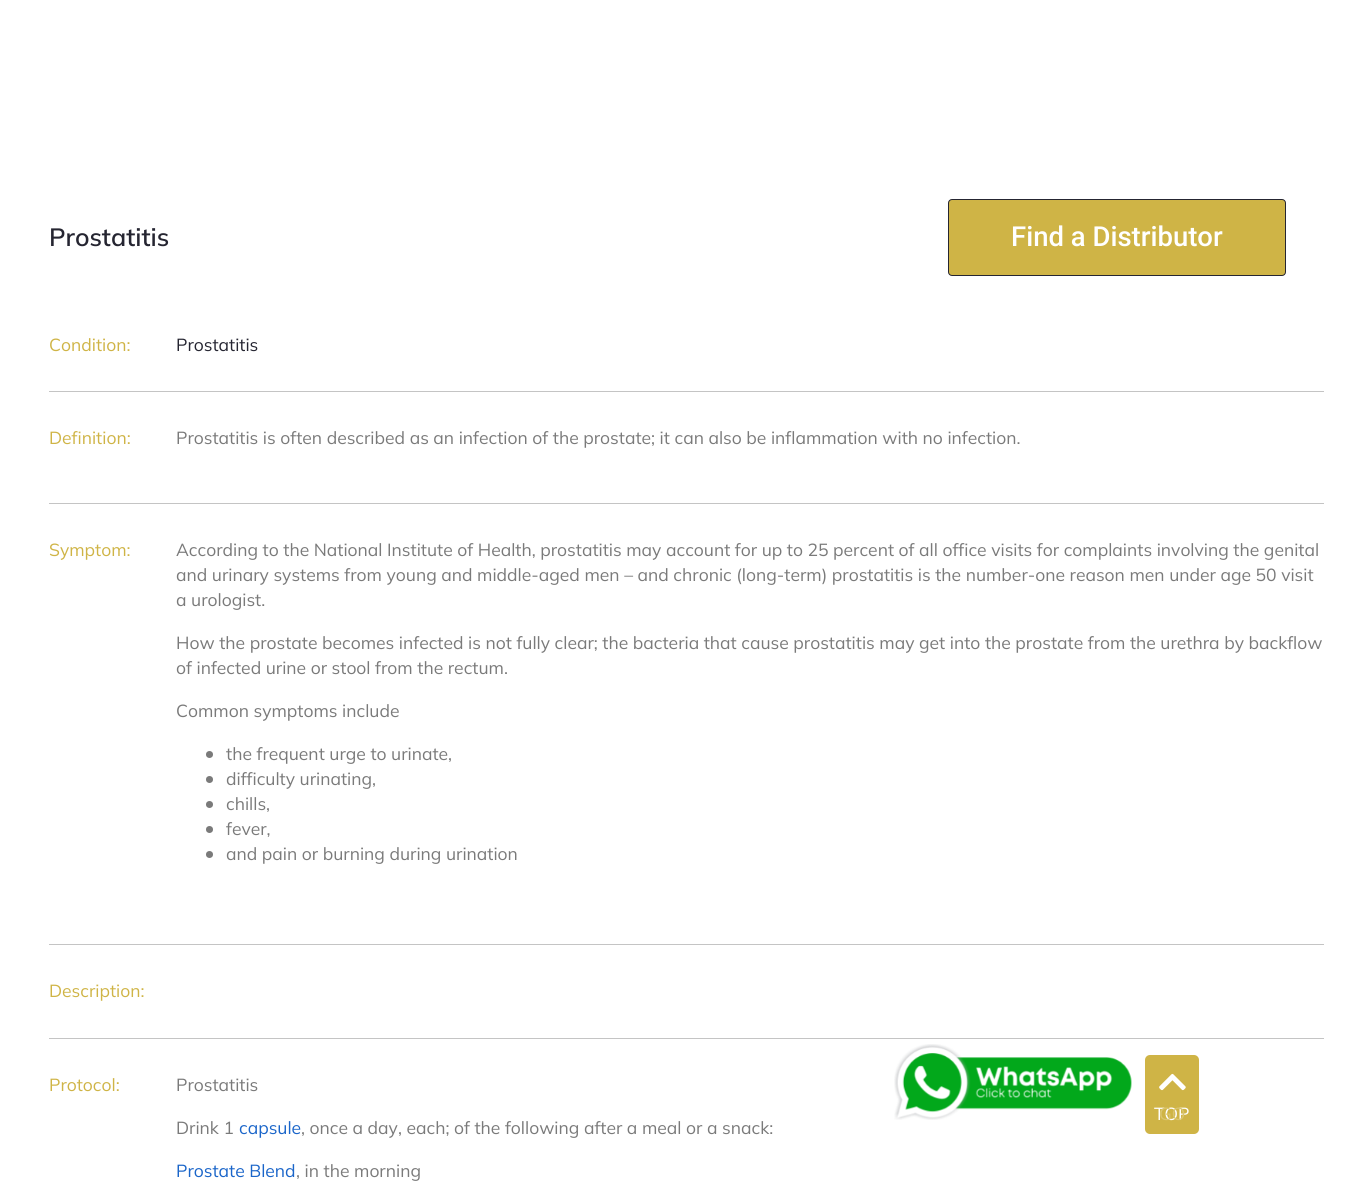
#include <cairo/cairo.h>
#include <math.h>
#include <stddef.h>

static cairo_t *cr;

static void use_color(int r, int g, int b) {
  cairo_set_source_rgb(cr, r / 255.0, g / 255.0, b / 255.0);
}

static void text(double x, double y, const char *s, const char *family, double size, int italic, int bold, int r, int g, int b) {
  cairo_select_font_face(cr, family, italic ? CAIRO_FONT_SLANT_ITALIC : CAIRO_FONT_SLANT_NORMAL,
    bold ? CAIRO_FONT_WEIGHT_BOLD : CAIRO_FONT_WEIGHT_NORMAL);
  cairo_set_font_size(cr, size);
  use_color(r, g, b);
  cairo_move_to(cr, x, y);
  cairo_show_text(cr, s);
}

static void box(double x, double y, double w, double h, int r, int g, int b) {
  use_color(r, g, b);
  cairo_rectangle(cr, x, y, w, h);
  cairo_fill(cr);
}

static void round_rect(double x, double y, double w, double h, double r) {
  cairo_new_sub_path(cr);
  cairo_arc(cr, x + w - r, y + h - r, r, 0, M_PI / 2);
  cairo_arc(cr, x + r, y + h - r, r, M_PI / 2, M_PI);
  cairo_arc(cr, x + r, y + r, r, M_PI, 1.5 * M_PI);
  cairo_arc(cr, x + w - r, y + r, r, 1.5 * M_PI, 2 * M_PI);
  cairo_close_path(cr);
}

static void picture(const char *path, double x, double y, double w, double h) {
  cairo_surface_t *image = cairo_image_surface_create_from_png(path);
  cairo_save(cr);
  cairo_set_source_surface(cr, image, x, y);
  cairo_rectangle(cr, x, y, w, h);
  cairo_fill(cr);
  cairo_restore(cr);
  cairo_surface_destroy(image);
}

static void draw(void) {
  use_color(255, 255, 255);
  cairo_paint(cr);
  use_color(207, 180, 70);
  round_rect(948.5, 199.5, 337, 76, 3.5);
  cairo_fill_preserve(cr);
  use_color(37, 37, 49);
  cairo_set_line_width(cr, 1);
  cairo_stroke(cr);
  box(49, 391, 1275, 1, 196, 196, 196);
  box(49, 503, 1275, 1, 196, 196, 196);
  use_color(122, 122, 122);
  cairo_arc(cr, 209.5, 754.5, 3.5, 0, 2 * M_PI);
  cairo_fill(cr);
  cairo_arc(cr, 209.5, 779.5, 3.5, 0, 2 * M_PI);
  cairo_fill(cr);
  cairo_arc(cr, 209.5, 804.5, 3.5, 0, 2 * M_PI);
  cairo_fill(cr);
  cairo_arc(cr, 209.5, 829.5, 3.5, 0, 2 * M_PI);
  cairo_fill(cr);
  cairo_arc(cr, 209.5, 854.5, 3.5, 0, 2 * M_PI);
  cairo_fill(cr);
  box(49, 944, 1275, 1, 196, 196, 196);
  box(49, 1038, 1275, 1, 196, 196, 196);
  picture("img_01.png", 894, 1044, 238, 76);
  use_color(207, 180, 70);
  round_rect(1145, 1055, 54, 79, 5);
  cairo_fill(cr);
  picture("img_02.png", 1159, 1073, 27, 18);
  text(49, 246, "Prostatitis", "Mulish SemiBold", 25, 0, 0, 37, 37, 49);
  text(1011, 246, "Find a Distributor", "Roboto Medium", 27.5, 0, 0, 255, 255, 255);
  text(49, 351, "Condition:", "Mulish", 17.5, 0, 0, 207, 180, 70);
  text(176, 351, "Prostatitis", "Mulish", 17.5, 0, 0, 37, 37, 49);
  text(49, 444, "Definition:", "Mulish", 17.5, 0, 0, 207, 180, 70);
  text(176, 444, "Prostatitis is often described as an infection of the prostate; it can also be inflammation with no infection.", "Mulish", 17.5, 0, 0, 122, 122, 122);
  text(49, 556, "Symptom:", "Mulish", 17.5, 0, 0, 207, 180, 70);
  text(176, 556, "According to the National Institute of Health, prostatitis may account for up to 25 percent of all office visits for complaints involving the genital", "Mulish", 17.5, 0, 0, 122, 122, 122);
  text(176, 581, "and urinary systems from young and middle-aged men – and chronic (long-term) prostatitis is the number-one reason men under age 50 visit", "Mulish", 17.5, 0, 0, 122, 122, 122);
  text(176, 606, "a urologist.", "Mulish", 17.5, 0, 0, 122, 122, 122);
  text(176, 649, "How the prostate becomes infected is not fully clear; the bacteria that cause prostatitis may get into the prostate from the urethra by backflow", "Mulish", 17.5, 0, 0, 122, 122, 122);
  text(176, 674, "of infected urine or stool from the rectum.", "Mulish", 17.5, 0, 0, 122, 122, 122);
  text(176, 717, "Common symptoms include", "Mulish", 17.5, 0, 0, 122, 122, 122);
  text(226, 760, "the frequent urge to urinate,", "Mulish", 17.5, 0, 0, 122, 122, 122);
  text(226, 785, "difficulty urinating,", "Mulish", 17.5, 0, 0, 122, 122, 122);
  text(226, 810, "chills,", "Mulish", 17.5, 0, 0, 122, 122, 122);
  text(226, 835, "fever,", "Mulish", 17.5, 0, 0, 122, 122, 122);
  text(226, 860, "and pain or burning during urination", "Mulish", 17.5, 0, 0, 122, 122, 122);
  text(49, 997, "Description:", "Mulish", 17.5, 0, 0, 207, 180, 70);
  text(49, 1091, "Protocol:", "Mulish", 17.5, 0, 0, 207, 180, 70);
  text(176, 1091, "Prostatitis", "Mulish", 17.5, 0, 0, 122, 122, 122);
  text(176, 1134, "Drink 1", "Mulish", 17.5, 0, 0, 122, 122, 122);
  text(239, 1134, "capsule", "Mulish", 17.5, 0, 0, 26, 101, 201);
  text(301, 1134, ", once a day, each; of the following after a meal or a snack:", "Mulish", 17.5, 0, 0, 122, 122, 122);
  text(176, 1177, "Prostate Blend", "Mulish", 17.5, 0, 0, 26, 101, 201);
  text(296, 1177, ", in the morning", "Mulish", 17.5, 0, 0, 122, 122, 122);
  text(1154, 1120, "TOP", "Mulish", 17.5, 0, 0, 255, 255, 255);
  text(1159, 1120, "GO", "Mulish", 17.5, 0, 0, 218, 197, 111);
}

int main(void) {
  cairo_surface_t *surface = cairo_image_surface_create(CAIRO_FORMAT_RGB24, 1372, 1193);
  cr = cairo_create(surface);
  cairo_font_options_t *options = cairo_font_options_create();
  cairo_font_options_set_hint_metrics(options, CAIRO_HINT_METRICS_OFF);
  cairo_font_options_set_hint_style(options, CAIRO_HINT_STYLE_NONE);
  cairo_set_font_options(cr, options);
  cairo_set_miter_limit(cr, 4);
  draw();
  cairo_surface_write_to_png(surface, "out.png");
  cairo_font_options_destroy(options);
  cairo_destroy(cr);
  cairo_surface_destroy(surface);
  return 0;
}
